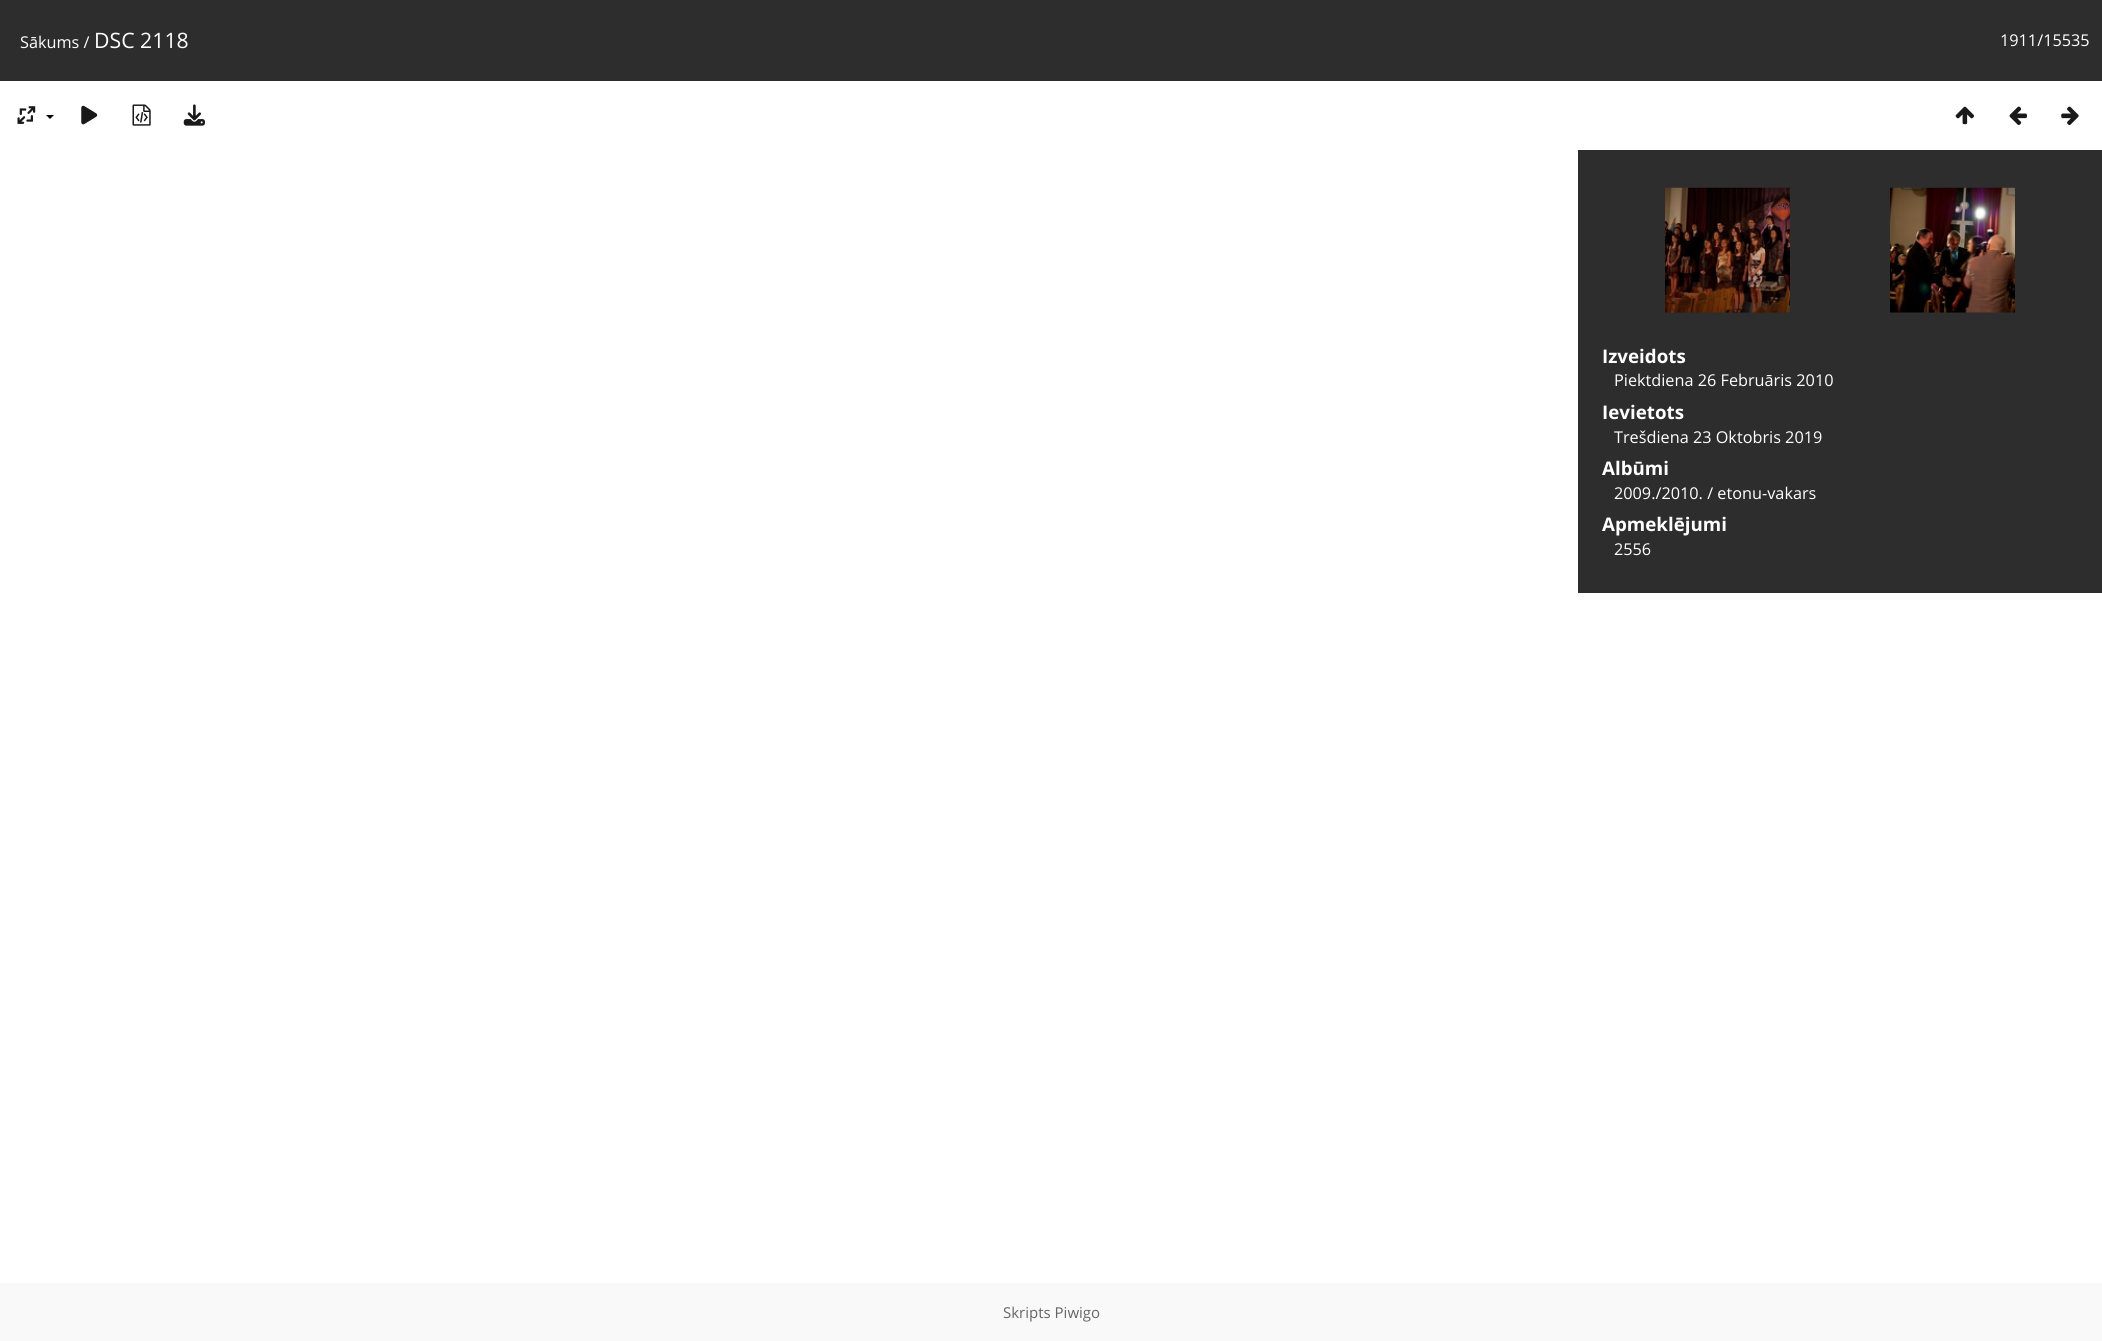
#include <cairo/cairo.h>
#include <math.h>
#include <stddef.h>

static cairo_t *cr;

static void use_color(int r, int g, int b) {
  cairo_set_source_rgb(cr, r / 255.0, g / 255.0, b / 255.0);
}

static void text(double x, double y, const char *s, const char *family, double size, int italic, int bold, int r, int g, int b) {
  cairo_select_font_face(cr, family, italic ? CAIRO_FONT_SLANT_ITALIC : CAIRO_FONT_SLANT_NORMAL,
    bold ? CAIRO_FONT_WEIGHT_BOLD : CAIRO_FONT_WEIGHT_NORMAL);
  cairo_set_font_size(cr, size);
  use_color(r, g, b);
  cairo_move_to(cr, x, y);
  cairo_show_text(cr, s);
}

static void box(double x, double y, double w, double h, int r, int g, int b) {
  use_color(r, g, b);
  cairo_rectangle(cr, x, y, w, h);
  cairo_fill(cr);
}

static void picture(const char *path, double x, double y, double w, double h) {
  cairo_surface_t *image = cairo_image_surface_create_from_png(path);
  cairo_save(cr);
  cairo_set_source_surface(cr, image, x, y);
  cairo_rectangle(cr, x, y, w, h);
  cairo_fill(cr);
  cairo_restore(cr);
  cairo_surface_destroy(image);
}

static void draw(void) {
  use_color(255, 255, 255);
  cairo_paint(cr);
  box(0, 0, 2102, 81, 45, 45, 45);
  picture("img_01.png", 17, 106, 19, 18);
  use_color(0, 0, 0);
  cairo_new_path(cr);
  cairo_move_to(cr, 46, 115);
  cairo_line_to(cr, 54, 115);
  cairo_line_to(cr, 50, 119);
  cairo_close_path(cr);
  cairo_fill(cr);
  picture("img_02.png", 81, 105, 17, 20);
  picture("img_03.png", 132, 104, 19, 22);
  picture("img_04.png", 183, 104, 22, 22);
  picture("img_05.png", 1955, 106, 20, 19);
  picture("img_06.png", 2009, 106, 18, 19);
  picture("img_07.png", 2061, 106, 18, 19);
  box(1578, 150, 524, 443, 45, 45, 45);
  picture("img_08.png", 1665, 187, 125, 126);
  picture("img_09.png", 1890, 187, 125, 126);
  box(0, 1283, 2102, 58, 249, 249, 249);
  text(20, 48, "Sākums /", "Open Sans", 16.25, 0, 0, 255, 255, 255);
  text(94, 48, "DSC 2118", "Open Sans", 21.25, 0, 0, 255, 255, 255);
  text(2000, 46, "1911/15535", "Open Sans", 16.25, 0, 0, 255, 255, 255);
  text(1602, 363, "Izveidots", "Open Sans", 18.75, 0, 1, 255, 255, 255);
  text(1614, 386, "Piektdiena 26 Februāris 2010", "Open Sans", 16.25, 0, 0, 255, 255, 255);
  text(1602, 419, "Ievietots", "Open Sans", 18.75, 0, 1, 255, 255, 255);
  text(1614, 443, "Trešdiena 23 Oktobris 2019", "Open Sans", 16.25, 0, 0, 255, 255, 255);
  text(1602, 475, "Albūmi", "Open Sans", 18.75, 0, 1, 255, 255, 255);
  text(1614, 499, "2009./2010. / etonu-vakars", "Open Sans", 16.25, 0, 0, 255, 255, 255);
  text(1602, 531, "Apmeklējumi", "Open Sans", 18.75, 0, 1, 255, 255, 255);
  text(1614, 555, "2556", "Open Sans", 16.25, 0, 0, 255, 255, 255);
  text(1003, 1318, "Skripts Piwigo", "Open Sans", 15, 0, 0, 102, 102, 102);
}

int main(void) {
  cairo_surface_t *surface = cairo_image_surface_create(CAIRO_FORMAT_RGB24, 2102, 1341);
  cr = cairo_create(surface);
  cairo_font_options_t *options = cairo_font_options_create();
  cairo_font_options_set_hint_metrics(options, CAIRO_HINT_METRICS_OFF);
  cairo_font_options_set_hint_style(options, CAIRO_HINT_STYLE_NONE);
  cairo_set_font_options(cr, options);
  cairo_set_miter_limit(cr, 4);
  draw();
  cairo_surface_write_to_png(surface, "out.png");
  cairo_font_options_destroy(options);
  cairo_destroy(cr);
  cairo_surface_destroy(surface);
  return 0;
}
